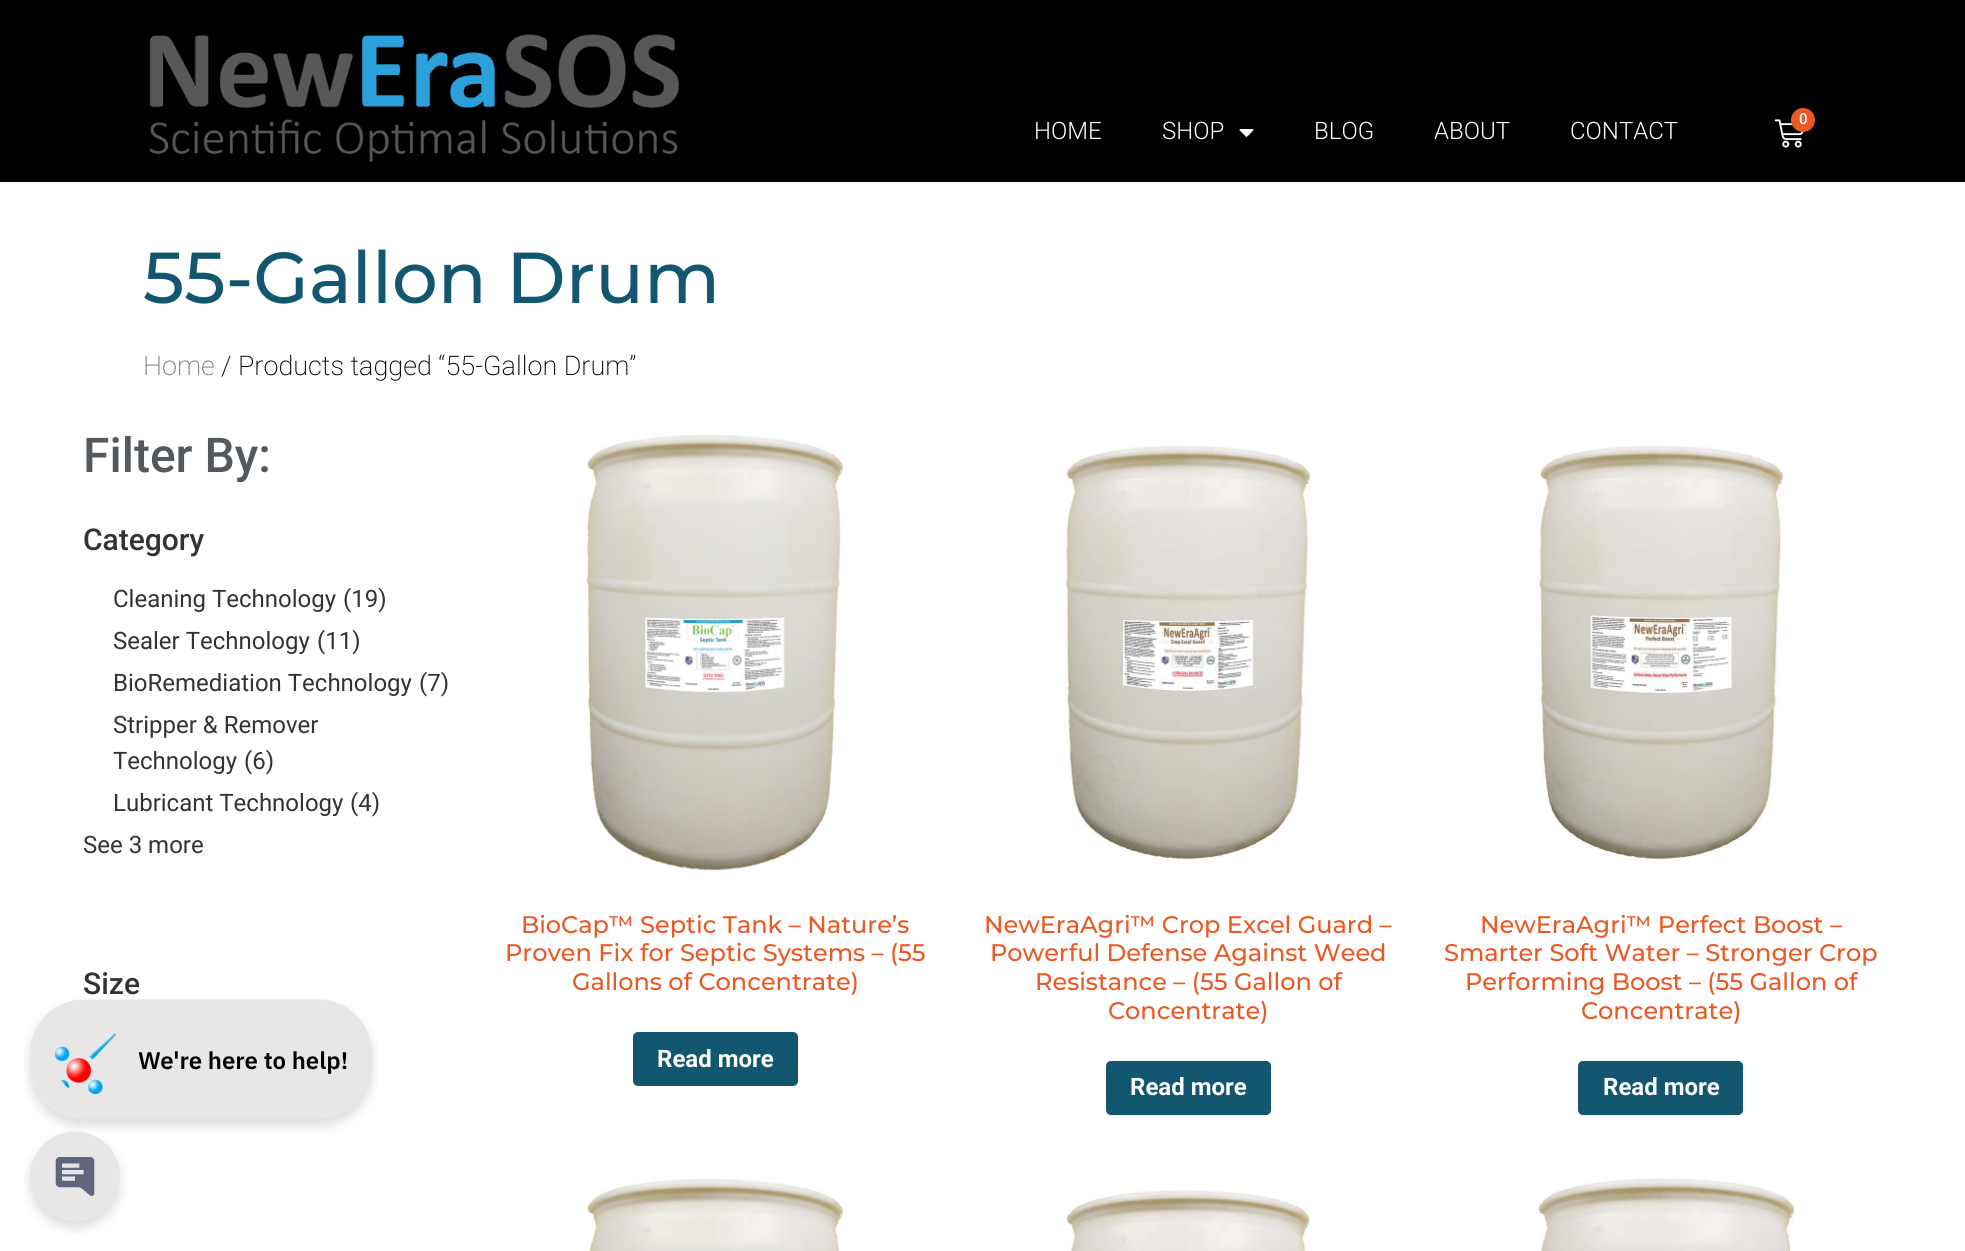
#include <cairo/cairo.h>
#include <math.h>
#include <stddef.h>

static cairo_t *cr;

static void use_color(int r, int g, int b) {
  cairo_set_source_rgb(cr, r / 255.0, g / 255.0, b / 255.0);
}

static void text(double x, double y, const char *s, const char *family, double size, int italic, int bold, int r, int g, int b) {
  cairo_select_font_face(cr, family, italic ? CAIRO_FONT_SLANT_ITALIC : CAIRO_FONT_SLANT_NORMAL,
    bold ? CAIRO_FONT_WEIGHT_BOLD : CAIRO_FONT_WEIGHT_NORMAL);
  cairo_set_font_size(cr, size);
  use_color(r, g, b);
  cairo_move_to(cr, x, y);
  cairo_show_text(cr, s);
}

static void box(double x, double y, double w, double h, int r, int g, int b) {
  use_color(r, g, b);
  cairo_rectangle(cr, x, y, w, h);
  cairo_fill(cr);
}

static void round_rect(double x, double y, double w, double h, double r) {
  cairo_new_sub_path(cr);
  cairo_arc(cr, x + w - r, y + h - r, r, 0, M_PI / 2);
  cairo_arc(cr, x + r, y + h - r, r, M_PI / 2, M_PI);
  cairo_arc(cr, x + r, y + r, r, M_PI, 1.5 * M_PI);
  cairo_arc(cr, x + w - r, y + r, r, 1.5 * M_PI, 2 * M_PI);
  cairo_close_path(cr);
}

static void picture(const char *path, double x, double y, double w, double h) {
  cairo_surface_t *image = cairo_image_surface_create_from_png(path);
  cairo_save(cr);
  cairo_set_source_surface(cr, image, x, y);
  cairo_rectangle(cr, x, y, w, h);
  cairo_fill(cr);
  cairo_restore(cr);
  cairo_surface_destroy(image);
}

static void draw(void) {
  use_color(255, 255, 255);
  cairo_paint(cr);
  box(0, 0, 1965, 182, 0, 0, 0);
  picture("img_01.png", 149, 34, 530, 128);
  picture("img_02.png", 1774, 119, 30, 29);
  use_color(234, 88, 35);
  cairo_arc(cr, 1803, 120, 12, 0, 2 * M_PI);
  cairo_fill(cr);
  picture("img_03.png", 1239, 129, 15, 8);
  picture("img_04.png", 585, 434, 259, 437);
  use_color(18, 87, 111);
  round_rect(633, 1032, 165, 54, 5);
  cairo_fill(cr);
  picture("img_05.png", 1064, 446, 249, 415);
  round_rect(1106, 1061, 165, 54, 5);
  cairo_fill(cr);
  picture("img_06.png", 1535, 445, 251, 416);
  round_rect(1578, 1061, 165, 54, 5);
  cairo_fill(cr);
  picture("img_07.png", 587, 1178, 257, 73);
  picture("img_08.png", 1065, 1190, 246, 61);
  picture("img_09.png", 1535, 1178, 259, 73);
  picture("img_10.png", 24, 999, 354, 234);
  text(1799, 124, "0", "Roboto Medium", 15, 0, 0, 255, 255, 255);
  text(1034, 139, "HOME", "Roboto Light", 24, 0, 0, 255, 255, 255);
  text(1162, 139, "SHOP", "Roboto Light", 24, 0, 0, 255, 255, 255);
  text(1314, 139, "BLOG", "Roboto Light", 24, 0, 0, 255, 255, 255);
  text(1434, 139, "ABOUT", "Roboto Light", 24, 0, 0, 255, 255, 255);
  text(1570, 139, "CONTACT", "Roboto Light", 24, 0, 0, 255, 255, 255);
  text(143, 303, "55-Gallon Drum", "Montserrat Medium", 72, 0, 0, 18, 87, 111);
  text(143, 375, "Home", "Roboto ExtraLight", 27, 0, 0, 122, 122, 122);
  text(221, 375, "/ Products tagged “55-Gallon Drum”", "Roboto ExtraLight", 27, 0, 0, 0, 0, 0);
  text(83, 472, "Filter By:", "Roboto Medium", 48, 0, 0, 84, 89, 95);
  text(83, 550, "Category", "Roboto Medium", 30, 0, 0, 51, 51, 51);
  text(113, 607, "Cleaning Technology", "Roboto", 24, 0, 0, 51, 51, 51);
  text(343, 607, "(19)", "Roboto", 24, 0, 0, 51, 51, 51);
  text(113, 649, "Sealer Technology", "Roboto", 24, 0, 0, 51, 51, 51);
  text(317, 649, "(11)", "Roboto", 24, 0, 0, 51, 51, 51);
  text(113, 691, "BioRemediation Technology", "Roboto", 24, 0, 0, 51, 51, 51);
  text(419, 691, "(7)", "Roboto", 24, 0, 0, 51, 51, 51);
  text(113, 733, "Stripper & Remover", "Roboto", 24, 0, 0, 51, 51, 51);
  text(113, 769, "Technology", "Roboto", 24, 0, 0, 51, 51, 51);
  text(244, 769, "(6)", "Roboto", 24, 0, 0, 51, 51, 51);
  text(113, 811, "Lubricant Technology", "Roboto", 24, 0, 0, 51, 51, 51);
  text(350, 811, "(4)", "Roboto", 24, 0, 0, 51, 51, 51);
  text(83, 853, "See 3 more", "Roboto", 24, 0, 0, 51, 51, 51);
  text(83, 994, "Size", "Roboto Medium", 30, 0, 0, 51, 51, 51);
  text(521, 933, "BioCap™ Septic Tank – Nature’s", "Montserrat Medium", 24, 0, 0, 234, 88, 35);
  text(505, 961, "Proven Fix for Septic Systems – (55", "Montserrat Medium", 24, 0, 0, 234, 88, 35);
  text(572, 990, "Gallons of Concentrate)", "Montserrat Medium", 24, 0, 0, 234, 88, 35);
  text(657, 1067, "Read more", "Roboto", 24, 0, 1, 255, 255, 255);
  text(984, 933, "NewEraAgri™ Crop Excel Guard –", "Montserrat Medium", 24, 0, 0, 234, 88, 35);
  text(990, 961, "Powerful Defense Against Weed", "Montserrat Medium", 24, 0, 0, 234, 88, 35);
  text(1035, 990, "Resistance – (55 Gallon of", "Montserrat Medium", 24, 0, 0, 234, 88, 35);
  text(1108, 1019, "Concentrate)", "Montserrat Medium", 24, 0, 0, 234, 88, 35);
  text(1130, 1095, "Read more", "Roboto", 24, 0, 1, 255, 255, 255);
  text(1480, 933, "NewEraAgri™ Perfect Boost –", "Montserrat Medium", 24, 0, 0, 234, 88, 35);
  text(1444, 961, "Smarter Soft Water – Stronger Crop", "Montserrat Medium", 24, 0, 0, 234, 88, 35);
  text(1465, 990, "Performing Boost – (55 Gallon of", "Montserrat Medium", 24, 0, 0, 234, 88, 35);
  text(1581, 1019, "Concentrate)", "Montserrat Medium", 24, 0, 0, 234, 88, 35);
  text(1603, 1095, "Read more", "Roboto", 24, 0, 1, 255, 255, 255);
}

int main(void) {
  cairo_surface_t *surface = cairo_image_surface_create(CAIRO_FORMAT_RGB24, 1965, 1251);
  cr = cairo_create(surface);
  cairo_font_options_t *options = cairo_font_options_create();
  cairo_font_options_set_hint_metrics(options, CAIRO_HINT_METRICS_OFF);
  cairo_font_options_set_hint_style(options, CAIRO_HINT_STYLE_NONE);
  cairo_set_font_options(cr, options);
  cairo_set_miter_limit(cr, 4);
  draw();
  cairo_surface_write_to_png(surface, "out.png");
  cairo_font_options_destroy(options);
  cairo_destroy(cr);
  cairo_surface_destroy(surface);
  return 0;
}
